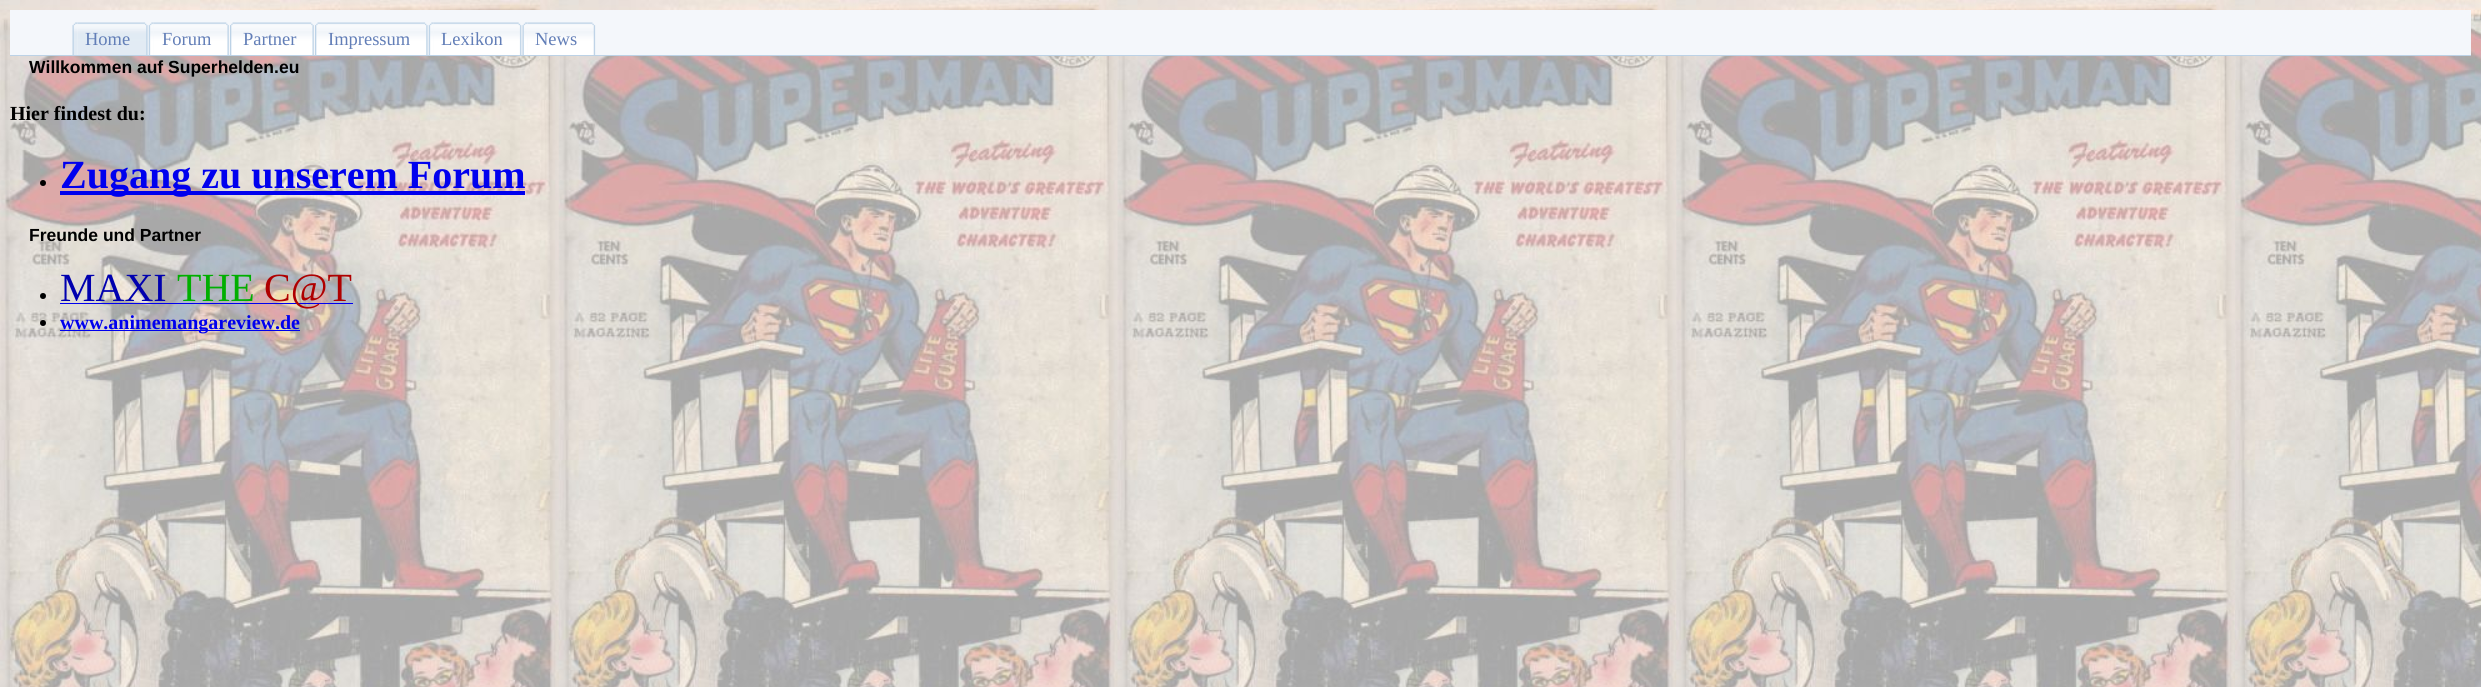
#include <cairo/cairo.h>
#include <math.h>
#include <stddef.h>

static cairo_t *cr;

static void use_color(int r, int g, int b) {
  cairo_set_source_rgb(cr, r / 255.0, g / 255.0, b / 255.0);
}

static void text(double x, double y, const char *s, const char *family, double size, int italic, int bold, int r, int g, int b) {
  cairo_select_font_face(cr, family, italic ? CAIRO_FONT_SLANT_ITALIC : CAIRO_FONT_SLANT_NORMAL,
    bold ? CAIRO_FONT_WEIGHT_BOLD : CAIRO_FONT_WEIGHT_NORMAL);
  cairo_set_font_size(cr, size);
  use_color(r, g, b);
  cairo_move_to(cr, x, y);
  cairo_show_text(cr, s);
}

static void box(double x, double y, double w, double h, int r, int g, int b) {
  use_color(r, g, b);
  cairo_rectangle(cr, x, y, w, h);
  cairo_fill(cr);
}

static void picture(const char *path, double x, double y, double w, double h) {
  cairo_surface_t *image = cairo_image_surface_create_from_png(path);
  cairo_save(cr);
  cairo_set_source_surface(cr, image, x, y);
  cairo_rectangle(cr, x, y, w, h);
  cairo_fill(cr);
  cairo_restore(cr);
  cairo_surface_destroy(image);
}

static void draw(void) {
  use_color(255, 255, 255);
  cairo_paint(cr);
  picture("img_01.png", 0, 0, 2481, 687);
  box(10, 10, 2461, 45, 244, 247, 251);
  box(10, 55, 2461, 1, 188, 210, 230);
  picture("img_02.png", 72, 22, 6, 33);
  picture("img_03.png", 77, 22, 71, 33);
  picture("img_04.png", 148, 22, 6, 33);
  picture("img_05.png", 153, 22, 76, 33);
  picture("img_06.png", 230, 22, 5, 33);
  picture("img_07.png", 235, 22, 79, 33);
  picture("img_06.png", 315, 22, 5, 33);
  picture("img_08.png", 320, 22, 108, 33);
  picture("img_04.png", 428, 22, 6, 33);
  picture("img_09.png", 433, 22, 89, 33);
  picture("img_10.png", 522, 22, 6, 33);
  picture("img_11.png", 527, 22, 69, 33);
  use_color(0, 0, 0);
  cairo_arc(cr, 43, 183, 3, 0, 2 * M_PI);
  cairo_fill(cr);
  box(60, 191, 465, 4, 0, 0, 238);
  use_color(0, 0, 0);
  cairo_arc(cr, 43, 296, 3, 0, 2 * M_PI);
  cairo_fill(cr);
  box(60, 303, 293, 1, 0, 0, 238);
  use_color(0, 0, 0);
  cairo_arc(cr, 43, 323, 3, 0, 2 * M_PI);
  cairo_fill(cr);
  box(60, 330, 240, 1, 0, 0, 238);
  text(85, 45, "Home", "Liberation Serif", 18.5, 0, 0, 98, 126, 183);
  text(162, 45, "Forum", "Liberation Serif", 18.5, 0, 0, 98, 126, 183);
  text(243, 45, "Partner", "Liberation Serif", 18.5, 0, 0, 98, 126, 183);
  text(328, 45, "Impressum", "Liberation Serif", 18.5, 0, 0, 98, 126, 183);
  text(441, 45, "Lexikon", "Liberation Serif", 18.5, 0, 0, 98, 126, 183);
  text(535, 45, "News", "Liberation Serif", 18.5, 0, 0, 98, 126, 183);
  text(29, 73, "Willkommen auf Superhelden.eu", "Liberation Sans", 17.5, 0, 1, 0, 0, 0);
  text(10, 120, "Hier findest du:", "Liberation Serif", 20, 0, 1, 0, 0, 0);
  text(60, 188, "Zugang zu unserem Forum", "Liberation Serif", 40, 0, 1, 0, 0, 238);
  text(29, 241, "Freunde und Partner", "Liberation Sans", 17.5, 0, 1, 0, 0, 0);
  text(60, 301, "MAXI", "Liberation Serif", 40, 0, 0, 0, 0, 175);
  text(177, 301, "THE", "Liberation Serif", 40, 0, 0, 0, 175, 0);
  text(264, 301, "C@T", "Liberation Serif", 40, 0, 0, 175, 0, 0);
  text(60, 329, "www.animemangareview.de", "Liberation Serif", 20, 0, 1, 0, 0, 238);
}

int main(void) {
  cairo_surface_t *surface = cairo_image_surface_create(CAIRO_FORMAT_RGB24, 2481, 687);
  cr = cairo_create(surface);
  cairo_font_options_t *options = cairo_font_options_create();
  cairo_font_options_set_hint_metrics(options, CAIRO_HINT_METRICS_OFF);
  cairo_font_options_set_hint_style(options, CAIRO_HINT_STYLE_NONE);
  cairo_set_font_options(cr, options);
  cairo_set_miter_limit(cr, 4);
  draw();
  cairo_surface_write_to_png(surface, "out.png");
  cairo_font_options_destroy(options);
  cairo_destroy(cr);
  cairo_surface_destroy(surface);
  return 0;
}
